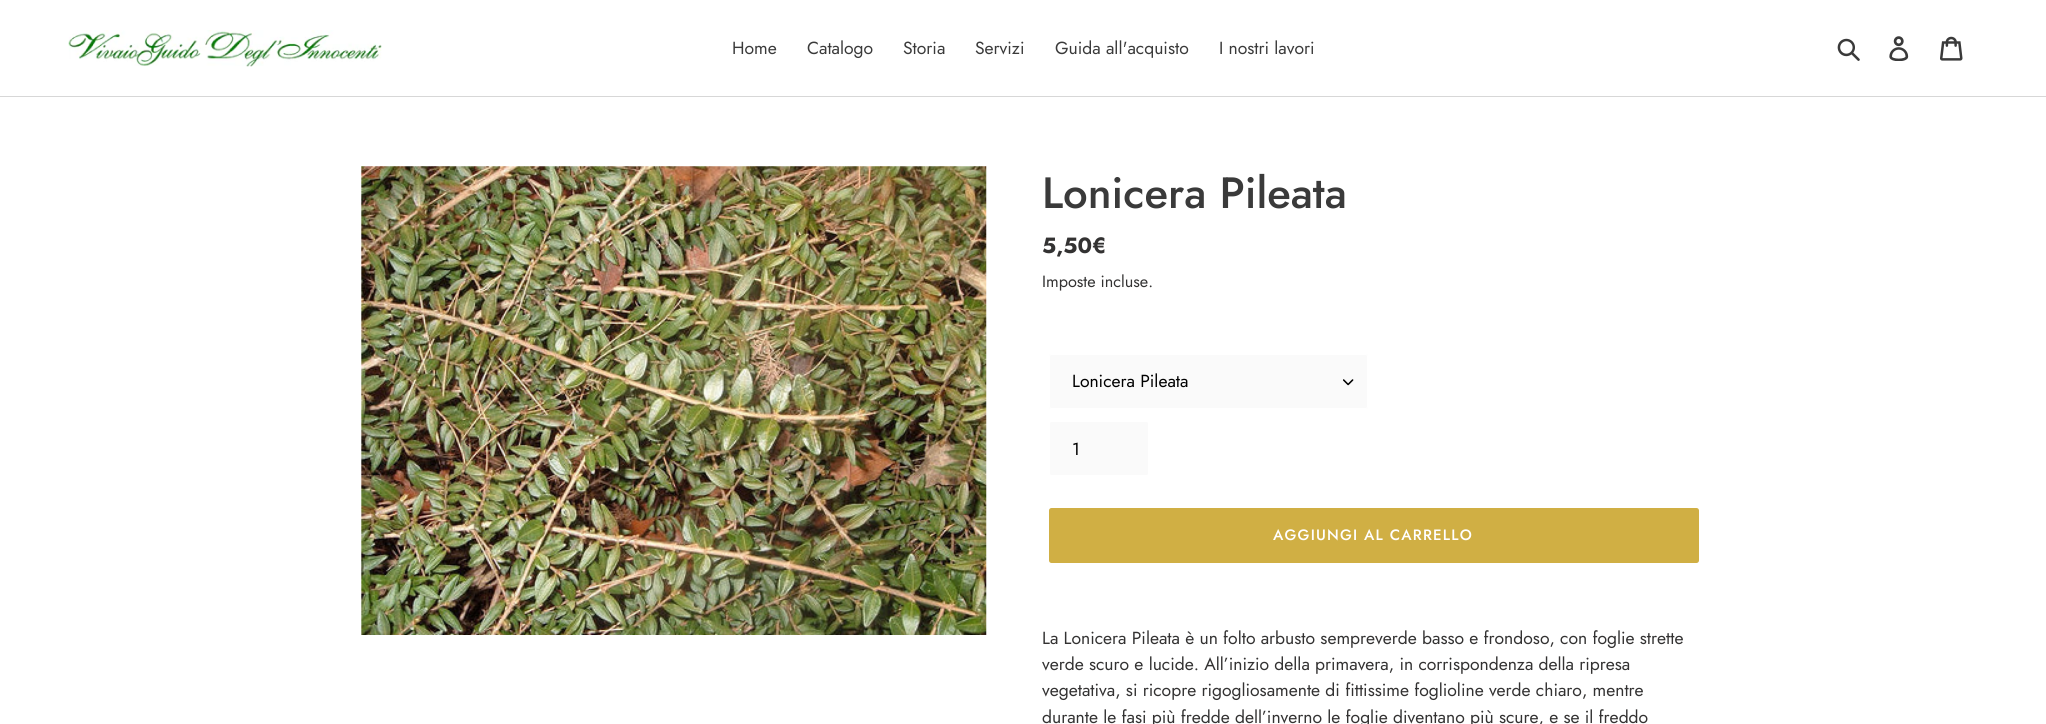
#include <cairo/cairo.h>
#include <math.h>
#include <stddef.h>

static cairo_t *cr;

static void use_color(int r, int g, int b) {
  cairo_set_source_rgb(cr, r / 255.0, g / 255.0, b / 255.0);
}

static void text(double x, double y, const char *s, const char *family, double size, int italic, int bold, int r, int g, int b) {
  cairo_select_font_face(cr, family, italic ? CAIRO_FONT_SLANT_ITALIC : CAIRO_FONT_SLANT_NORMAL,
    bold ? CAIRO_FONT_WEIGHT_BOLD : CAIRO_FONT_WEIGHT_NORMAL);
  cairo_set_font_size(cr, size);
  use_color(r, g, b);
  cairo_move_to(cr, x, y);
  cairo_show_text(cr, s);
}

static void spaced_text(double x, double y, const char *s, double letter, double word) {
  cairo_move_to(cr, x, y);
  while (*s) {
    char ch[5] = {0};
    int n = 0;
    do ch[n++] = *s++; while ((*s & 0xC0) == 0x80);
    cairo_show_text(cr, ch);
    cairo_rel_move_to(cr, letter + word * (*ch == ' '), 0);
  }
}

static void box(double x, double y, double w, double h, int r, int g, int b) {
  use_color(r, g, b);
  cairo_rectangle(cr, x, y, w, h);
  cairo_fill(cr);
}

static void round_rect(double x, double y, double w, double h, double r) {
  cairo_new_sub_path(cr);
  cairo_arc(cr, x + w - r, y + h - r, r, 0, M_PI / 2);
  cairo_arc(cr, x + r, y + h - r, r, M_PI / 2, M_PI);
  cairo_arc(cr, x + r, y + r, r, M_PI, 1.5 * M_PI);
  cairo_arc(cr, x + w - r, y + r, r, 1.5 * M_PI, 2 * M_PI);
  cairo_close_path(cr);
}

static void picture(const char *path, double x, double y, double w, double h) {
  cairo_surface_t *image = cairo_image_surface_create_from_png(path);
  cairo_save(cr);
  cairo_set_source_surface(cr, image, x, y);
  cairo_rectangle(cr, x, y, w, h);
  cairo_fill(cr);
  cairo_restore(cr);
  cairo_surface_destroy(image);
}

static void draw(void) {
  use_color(255, 255, 255);
  cairo_paint(cr);
  box(0, 96, 2046, 1, 215, 215, 215);
  picture("img_01.png", 68, 30, 314, 37);
  picture("img_02.png", 1837, 38, 23, 23);
  picture("img_03.png", 1889, 36, 20, 25);
  picture("img_04.png", 1940, 36, 23, 25);
  picture("img_05.png", 361, 166, 626, 469);
  use_color(250, 250, 250);
  round_rect(1049, 354, 319, 55, 2.5);
  cairo_fill(cr);
  picture("img_06.png", 1343, 379, 11, 7);
  round_rect(1049.5, 354.5, 318, 54, 2);
  use_color(255, 255, 255);
  cairo_set_line_width(cr, 1);
  cairo_stroke(cr);
  use_color(250, 250, 250);
  round_rect(1049.5, 421.5, 99, 54, 2);
  cairo_fill_preserve(cr);
  use_color(255, 255, 255);
  cairo_stroke(cr);
  use_color(208, 175, 68);
  round_rect(1049, 508, 650, 55, 2.5);
  cairo_fill(cr);
  text(732, 54, "Home", "Jost", 17.5, 0, 0, 58, 58, 58);
  text(807, 54, "Catalogo", "Jost", 17.5, 0, 0, 58, 58, 58);
  text(903, 54, "Storia", "Jost", 17.5, 0, 0, 58, 58, 58);
  text(975, 54, "Servizi", "Jost", 17.5, 0, 0, 58, 58, 58);
  text(1055, 54, "Guida all'acquisto", "Jost", 17.5, 0, 0, 58, 58, 58);
  text(1219, 54, "I nostri lavori", "Jost", 17.5, 0, 0, 58, 58, 58);
  text(1042, 208, "Lonicera Pileata", "Jost Medium", 43.75, 0, 0, 58, 58, 58);
  text(1042, 253, "5,50€", "Jost", 22, 0, 1, 51, 50, 50);
  text(1042, 287, "Imposte incluse.", "Jost", 16.25, 0, 0, 51, 50, 50);
  text(1072, 387, "Lonicera Pileata", "Jost", 17.5, 0, 0, 0, 0, 0);
  text(1072, 455, "1", "Jost", 17.5, 0, 0, 0, 0, 0);
  cairo_select_font_face(cr, "Jost Medium", CAIRO_FONT_SLANT_NORMAL, CAIRO_FONT_WEIGHT_NORMAL);
  cairo_set_font_size(cr, 15);
  use_color(255, 255, 255);
  spaced_text(1273, 540, "AGGIUNGI AL CARRELLO", 1.2, 0);
  text(1042, 644, "La Lonicera Pileata è un folto arbusto sempreverde basso e frondoso, con foglie strette", "Jost", 17.5, 0, 0, 51, 50, 50);
  text(1042, 670, "verde scuro e lucide. All’inizio della primavera, in corrispondenza della ripresa", "Jost", 17.5, 0, 0, 51, 50, 50);
  text(1042, 696, "vegetativa, si ricopre rigogliosamente di fittissime foglioline verde chiaro, mentre", "Jost", 17.5, 0, 0, 51, 50, 50);
  text(1042, 723, "durante le fasi più fredde dell’inverno le foglie diventano più scure, e se il freddo", "Jost", 17.5, 0, 0, 51, 50, 50);
}

int main(void) {
  cairo_surface_t *surface = cairo_image_surface_create(CAIRO_FORMAT_RGB24, 2046, 724);
  cr = cairo_create(surface);
  cairo_font_options_t *options = cairo_font_options_create();
  cairo_font_options_set_hint_metrics(options, CAIRO_HINT_METRICS_OFF);
  cairo_font_options_set_hint_style(options, CAIRO_HINT_STYLE_NONE);
  cairo_set_font_options(cr, options);
  cairo_set_miter_limit(cr, 4);
  draw();
  cairo_surface_write_to_png(surface, "out.png");
  cairo_font_options_destroy(options);
  cairo_destroy(cr);
  cairo_surface_destroy(surface);
  return 0;
}
